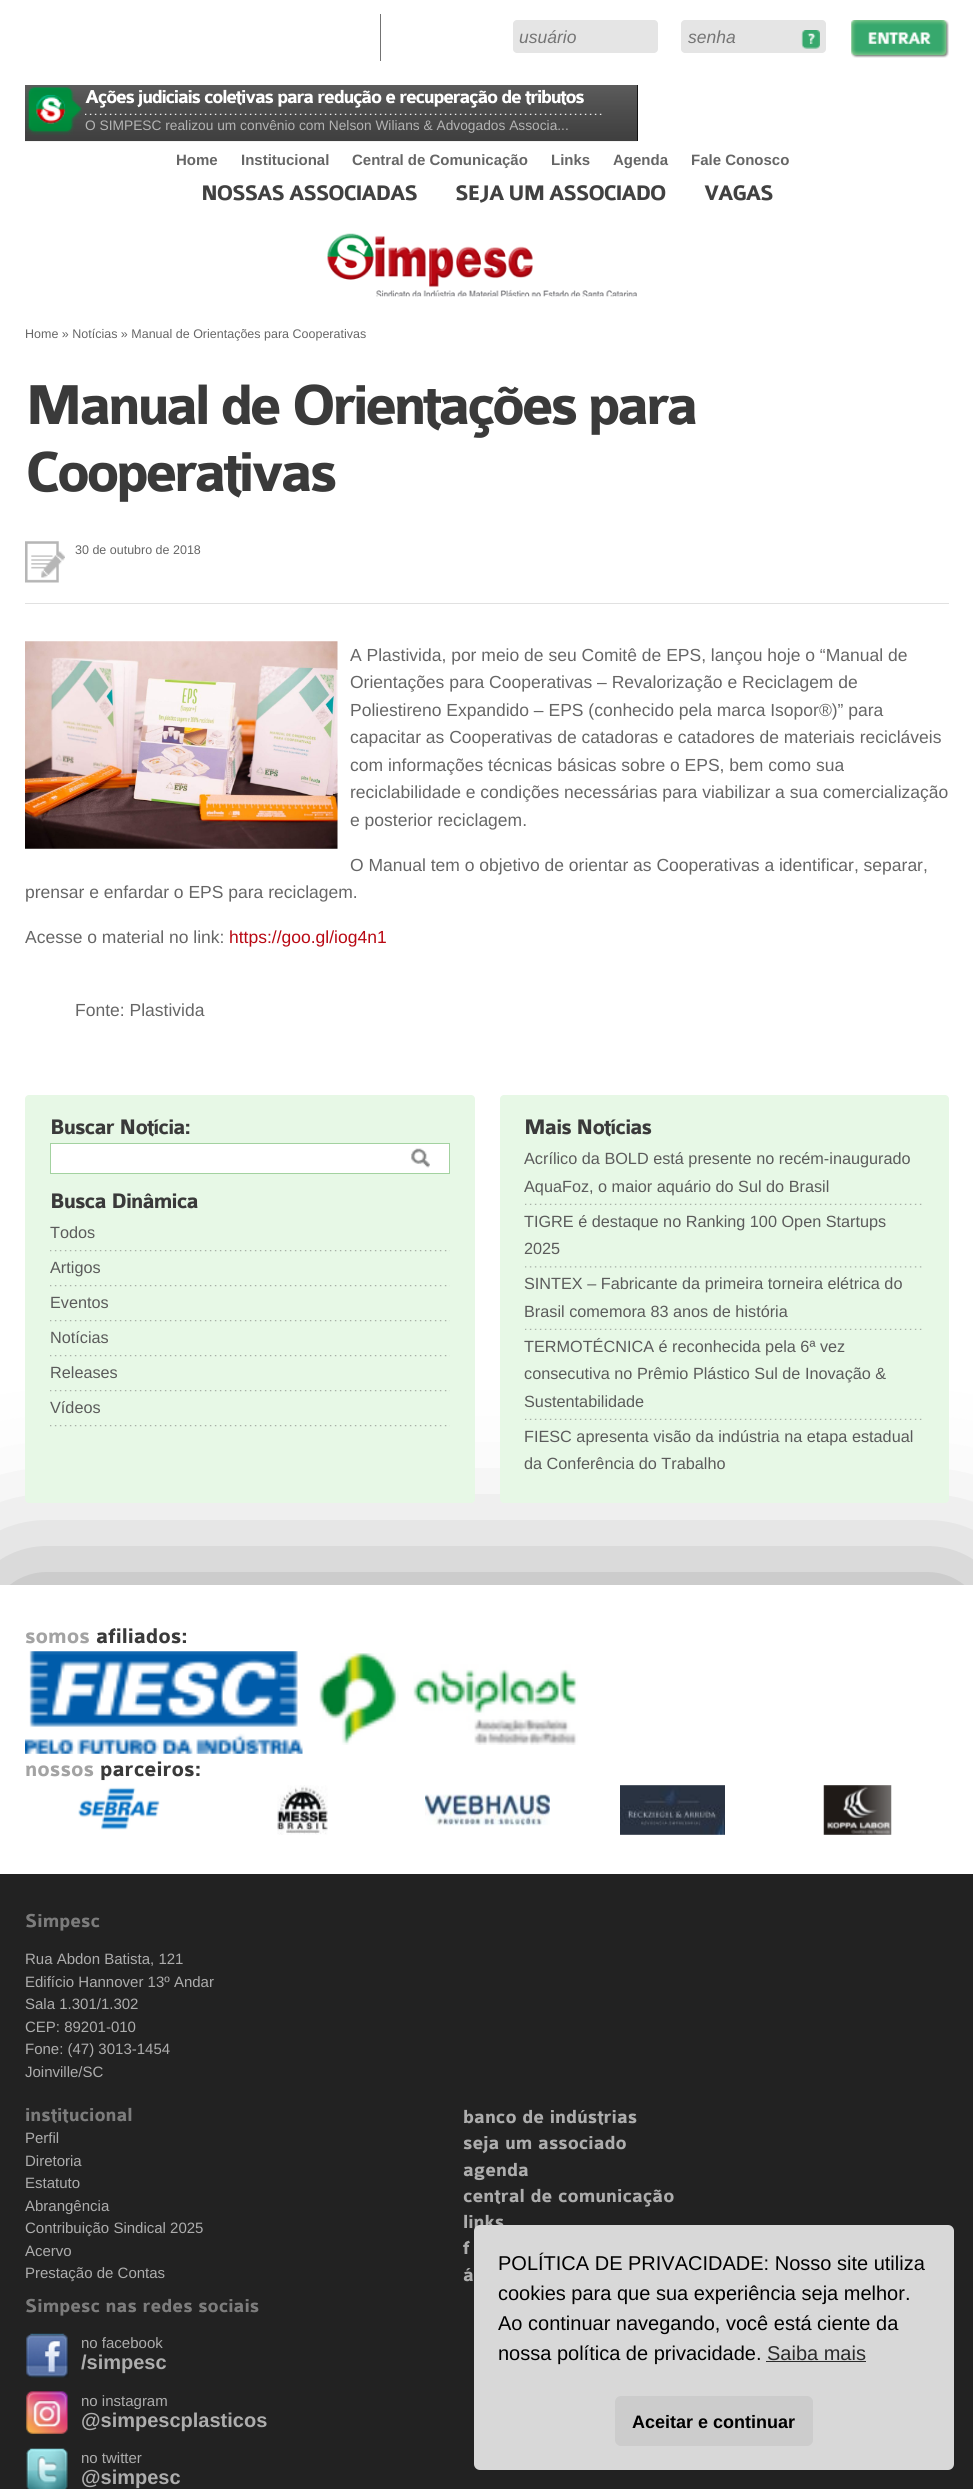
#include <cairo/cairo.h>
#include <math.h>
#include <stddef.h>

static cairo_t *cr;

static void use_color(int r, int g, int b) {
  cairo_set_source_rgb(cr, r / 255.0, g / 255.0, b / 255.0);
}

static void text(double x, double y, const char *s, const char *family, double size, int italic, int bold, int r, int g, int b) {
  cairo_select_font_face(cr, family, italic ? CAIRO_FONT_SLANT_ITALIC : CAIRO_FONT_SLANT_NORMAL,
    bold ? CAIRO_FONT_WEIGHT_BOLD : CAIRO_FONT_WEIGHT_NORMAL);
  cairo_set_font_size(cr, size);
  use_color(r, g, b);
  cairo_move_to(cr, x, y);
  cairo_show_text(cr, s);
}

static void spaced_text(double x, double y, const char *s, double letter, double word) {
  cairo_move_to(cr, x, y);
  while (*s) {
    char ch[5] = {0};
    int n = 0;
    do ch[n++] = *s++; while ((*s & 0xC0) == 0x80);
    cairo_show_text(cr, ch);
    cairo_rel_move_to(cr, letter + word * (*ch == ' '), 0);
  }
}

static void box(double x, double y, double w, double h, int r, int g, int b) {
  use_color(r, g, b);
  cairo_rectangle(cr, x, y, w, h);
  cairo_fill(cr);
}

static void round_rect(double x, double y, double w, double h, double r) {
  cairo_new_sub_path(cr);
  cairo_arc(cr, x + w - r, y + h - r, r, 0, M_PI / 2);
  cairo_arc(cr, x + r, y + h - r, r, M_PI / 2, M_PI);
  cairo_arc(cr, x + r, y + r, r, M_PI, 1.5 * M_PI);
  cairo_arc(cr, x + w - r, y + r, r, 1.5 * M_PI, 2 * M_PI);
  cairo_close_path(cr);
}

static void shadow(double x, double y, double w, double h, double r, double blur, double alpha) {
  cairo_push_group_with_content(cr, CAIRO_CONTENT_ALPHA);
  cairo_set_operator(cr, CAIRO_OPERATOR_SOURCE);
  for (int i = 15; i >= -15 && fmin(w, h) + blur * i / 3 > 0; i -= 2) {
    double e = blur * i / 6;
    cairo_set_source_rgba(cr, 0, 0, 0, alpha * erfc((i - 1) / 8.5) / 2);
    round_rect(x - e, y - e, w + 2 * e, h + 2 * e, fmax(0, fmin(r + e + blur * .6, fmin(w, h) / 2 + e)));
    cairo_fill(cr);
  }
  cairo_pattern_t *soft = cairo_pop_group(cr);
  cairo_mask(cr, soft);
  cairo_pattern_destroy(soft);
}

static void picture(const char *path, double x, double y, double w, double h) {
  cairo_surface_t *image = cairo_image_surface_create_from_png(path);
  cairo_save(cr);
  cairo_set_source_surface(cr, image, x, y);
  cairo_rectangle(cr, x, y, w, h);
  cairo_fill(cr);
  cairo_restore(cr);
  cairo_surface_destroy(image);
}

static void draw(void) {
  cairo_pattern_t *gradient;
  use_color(255, 255, 255);
  cairo_paint(cr);
  box(380, 14, 1, 47, 115, 115, 115);
  use_color(229, 229, 229);
  round_rect(513, 20, 145, 33, 4);
  cairo_fill(cr);
  round_rect(681, 20, 145, 33, 4);
  cairo_fill(cr);
  picture("img_01.png", 801, 30, 19, 19);
  picture("img_02.png", 851, 20, 98, 38);
  box(637, 85, 1, 56, 0, 0, 0);
  picture("img_03.png", 25, 85, 613, 57);
  picture("img_04.png", 26, 86, 57, 49);
  picture("img_05.png", 85, 113, 517, 2);
  picture("img_06.png", 327, 233, 310, 64);
  picture("img_07.png", 25, 541, 40, 42);
  box(25, 603, 924, 1, 225, 225, 225);
  picture("img_08.png", 25, 641, 313, 208);
  cairo_save(cr);
  cairo_set_fill_rule(cr, CAIRO_FILL_RULE_EVEN_ODD);
  cairo_new_path(cr);
  cairo_move_to(cr, 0, 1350);
  cairo_line_to(cr, 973, 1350);
  cairo_line_to(cr, 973, 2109);
  cairo_line_to(cr, 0, 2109);
  cairo_close_path(cr);
  cairo_move_to(cr, 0, 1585);
  cairo_line_to(cr, 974, 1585);
  cairo_line_to(cr, 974, 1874);
  cairo_line_to(cr, 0, 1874);
  cairo_close_path(cr);
  cairo_clip(cr);
  use_color(0, 0, 0);
  shadow(0, 1585, 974, 289, 0, 78, 0.4);
  cairo_restore(cr);
  use_color(231, 248, 230);
  round_rect(25, 1095, 450, 408, 4);
  cairo_fill(cr);
  box(51, 1144, 398, 29, 255, 255, 255);
  picture("img_09.png", 411, 1148, 19, 20);
  cairo_rectangle(cr, 50.5, 1143.5, 399, 30);
  use_color(163, 210, 160);
  cairo_set_line_width(cr, 1);
  cairo_stroke(cr);
  picture("img_10.png", 50, 1250, 400, 2);
  picture("img_10.png", 50, 1285, 400, 2);
  picture("img_10.png", 50, 1320, 400, 2);
  picture("img_10.png", 50, 1355, 400, 2);
  picture("img_10.png", 50, 1390, 400, 2);
  picture("img_10.png", 50, 1425, 400, 2);
  use_color(231, 248, 230);
  round_rect(500, 1095, 449, 408, 4);
  cairo_fill(cr);
  picture("img_11.png", 525, 1203, 397, 2);
  picture("img_12.png", 525, 1266, 397, 2);
  picture("img_11.png", 525, 1328, 397, 2);
  picture("img_11.png", 525, 1418, 397, 2);
  picture("img_13.png", 25, 1651, 278, 103);
  picture("img_14.png", 319, 1653, 259, 92);
  picture("img_15.png", 78, 1787, 82, 43);
  picture("img_16.png", 277, 1785, 51, 50);
  picture("img_17.png", 425, 1794, 125, 32);
  picture("img_18.png", 620, 1785, 105, 50);
  picture("img_19.png", 823, 1785, 69, 50);
  gradient = cairo_pattern_create_linear(25, 1810, 949, 1810);
  cairo_pattern_add_color_stop_rgba(gradient, 0, 1, 1, 1, 1);
  cairo_pattern_add_color_stop_rgba(gradient, 0.03, 1, 1, 1, 0);
  cairo_pattern_add_color_stop_rgba(gradient, 0.9, 1, 1, 1, 0);
  cairo_pattern_add_color_stop_rgba(gradient, 1, 1, 1, 1, 1);
  cairo_set_source(cr, gradient);
  cairo_pattern_destroy(gradient);
  cairo_rectangle(cr, 858, 1785, 34, 50);
  cairo_fill(cr);
  box(0, 1874, 973, 615, 34, 34, 34);
  picture("img_20.png", 26, 2333, 43, 45);
  picture("img_21.png", 26, 2391, 42, 43);
  picture("img_22.png", 26, 2448, 43, 41);
  text(519, 43, "usuário", "Liberation Sans", 17.5, 1, 0, 117, 117, 117);
  text(688, 43, "senha", "Liberation Sans", 17.5, 1, 0, 117, 117, 117);
  cairo_select_font_face(cr, "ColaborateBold", CAIRO_FONT_SLANT_NORMAL, CAIRO_FONT_WEIGHT_BOLD);
  cairo_set_font_size(cr, 20);
  use_color(255, 255, 255);
  spaced_text(85, 103, "Ações judiciais coletivas para redução e recuperação de tributos", -1.25, 0);
  text(85, 130, "O SIMPESC realizou um convênio com Nelson Wilians & Advogados Associa...", "Liberation Sans", 13.75, 0, 0, 180, 180, 180);
  text(176, 165, "Home", "Liberation Sans", 15, 0, 1, 102, 102, 102);
  text(241, 165, "Institucional", "Liberation Sans", 15, 0, 1, 102, 102, 102);
  text(352, 165, "Central de Comunicação", "Liberation Sans", 15, 0, 1, 102, 102, 102);
  text(551, 165, "Links", "Liberation Sans", 15, 0, 1, 102, 102, 102);
  text(613, 165, "Agenda", "Liberation Sans", 15, 0, 1, 102, 102, 102);
  text(691, 165, "Fale Conosco", "Liberation Sans", 15, 0, 1, 102, 102, 102);
  cairo_select_font_face(cr, "ColaborateBold", CAIRO_FONT_SLANT_NORMAL, CAIRO_FONT_WEIGHT_BOLD);
  cairo_set_font_size(cr, 22.5);
  use_color(65, 65, 65);
  spaced_text(201, 200, "NOSSAS ASSOCIADAS", -1.4, 0);
  spaced_text(455, 200, "SEJA UM ASSOCIADO", -1.4, 0);
  spaced_text(704, 200, "VAGAS", -1.4, 0);
  text(25, 338, "Home » Notícias » Manual de Orientações para Cooperativas", "Liberation Sans", 12.5, 0, 0, 102, 102, 102);
  cairo_select_font_face(cr, "ColaborateBold", CAIRO_FONT_SLANT_NORMAL, CAIRO_FONT_WEIGHT_BOLD);
  cairo_set_font_size(cr, 60);
  use_color(58, 58, 58);
  spaced_text(25, 424, "Manual de Orientações para", -3.75, 0);
  spaced_text(25, 491, "Cooperativas", -3.75, 0);
  text(75, 554, "30 de outubro de 2018", "Liberation Sans", 12.5, 0, 0, 102, 102, 102);
  text(350, 661, "A Plastivida, por meio de seu Comitê de EPS, lançou hoje o “Manual de", "Liberation Sans", 17.5, 0, 0, 102, 102, 102);
  text(350, 688, "Orientações para Cooperativas – Revalorização e Reciclagem de", "Liberation Sans", 17.5, 0, 0, 102, 102, 102);
  text(350, 716, "Poliestireno Expandido – EPS (conhecido pela marca Isopor®)” para", "Liberation Sans", 17.5, 0, 0, 102, 102, 102);
  text(350, 743, "capacitar as Cooperativas de catadoras e catadores de materiais recicláveis", "Liberation Sans", 17.5, 0, 0, 102, 102, 102);
  text(350, 771, "com informações técnicas básicas sobre o EPS, bem como sua", "Liberation Sans", 17.5, 0, 0, 102, 102, 102);
  text(350, 798, "reciclabilidade e condições necessárias para viabilizar a sua comercialização", "Liberation Sans", 17.5, 0, 0, 102, 102, 102);
  text(350, 826, "e posterior reciclagem.", "Liberation Sans", 17.5, 0, 0, 102, 102, 102);
  text(350, 871, "O Manual tem o objetivo de orientar as Cooperativas a identificar, separar,", "Liberation Sans", 17.5, 0, 0, 102, 102, 102);
  text(25, 898, "prensar e enfardar o EPS para reciclagem.", "Liberation Sans", 17.5, 0, 0, 102, 102, 102);
  text(25, 943, "Acesse o material no link:", "Liberation Sans", 17.5, 0, 0, 102, 102, 102);
  text(229, 943, "https://goo.gl/iog4n1", "Liberation Sans", 17.5, 0, 0, 185, 8, 19);
  text(75, 1016, "Fonte: Plastivida", "Liberation Sans", 17.5, 0, 0, 102, 102, 102);
  cairo_select_font_face(cr, "ColaborateBold", CAIRO_FONT_SLANT_NORMAL, CAIRO_FONT_WEIGHT_BOLD);
  cairo_set_font_size(cr, 22.5);
  use_color(58, 58, 58);
  spaced_text(50, 1134, "Buscar Notícia:", -0.9, 0);
  spaced_text(50, 1208, "Busca Dinâmica", -0.9, 0);
  text(50, 1238, "Todos", "Liberation Sans", 16.25, 0, 0, 91, 91, 91);
  text(50, 1273, "Artigos", "Liberation Sans", 16.25, 0, 0, 91, 91, 91);
  text(50, 1308, "Eventos", "Liberation Sans", 16.25, 0, 0, 91, 91, 91);
  text(50, 1343, "Notícias", "Liberation Sans", 16.25, 0, 0, 91, 91, 91);
  text(50, 1378, "Releases", "Liberation Sans", 16.25, 0, 0, 91, 91, 91);
  text(50, 1413, "Vídeos", "Liberation Sans", 16.25, 0, 0, 91, 91, 91);
  cairo_select_font_face(cr, "ColaborateBold", CAIRO_FONT_SLANT_NORMAL, CAIRO_FONT_WEIGHT_BOLD);
  cairo_set_font_size(cr, 22.5);
  use_color(58, 58, 58);
  spaced_text(524, 1134, "Mais Notícias", -0.9, 0);
  text(524, 1164, "Acrílico da BOLD está presente no recém-inaugurado", "Liberation Sans", 16.25, 0, 0, 91, 91, 91);
  text(524, 1192, "AquaFoz, o maior aquário do Sul do Brasil", "Liberation Sans", 16.25, 0, 0, 91, 91, 91);
  text(524, 1227, "TIGRE é destaque no Ranking 100 Open Startups", "Liberation Sans", 16.25, 0, 0, 91, 91, 91);
  text(524, 1254, "2025", "Liberation Sans", 16.25, 0, 0, 91, 91, 91);
  text(524, 1289, "SINTEX – Fabricante da primeira torneira elétrica do", "Liberation Sans", 16.25, 0, 0, 91, 91, 91);
  text(524, 1317, "Brasil comemora 83 anos de história", "Liberation Sans", 16.25, 0, 0, 91, 91, 91);
  text(524, 1352, "TERMOTÉCNICA é reconhecida pela 6ª vez", "Liberation Sans", 16.25, 0, 0, 91, 91, 91);
  text(524, 1379, "consecutiva no Prêmio Plástico Sul de Inovação &", "Liberation Sans", 16.25, 0, 0, 91, 91, 91);
  text(524, 1407, "Sustentabilidade", "Liberation Sans", 16.25, 0, 0, 91, 91, 91);
  text(524, 1442, "FIESC apresenta visão da indústria na etapa estadual", "Liberation Sans", 16.25, 0, 0, 91, 91, 91);
  text(524, 1469, "da Conferência do Trabalho", "Liberation Sans", 16.25, 0, 0, 91, 91, 91);
  text(25, 1643, "somos", "ColaborateBold", 22.5, 0, 1, 163, 163, 163);
  text(96, 1643, "afiliados:", "ColaborateBold", 22.5, 0, 1, 58, 58, 58);
  text(25, 1776, "nossos", "ColaborateBold", 22.5, 0, 1, 163, 163, 163);
  text(100, 1776, "parceiros:", "ColaborateBold", 22.5, 0, 1, 58, 58, 58);
  text(25, 1927, "Simpesc", "ColaborateBold", 20, 0, 1, 124, 124, 124);
  text(25, 1964, "Rua Abdon Batista, 121", "Liberation Sans", 15, 0, 0, 173, 173, 173);
  text(25, 1987, "Edifício Hannover 13º Andar", "Liberation Sans", 15, 0, 0, 173, 173, 173);
  text(25, 2009, "Sala 1.301/1.302", "Liberation Sans", 15, 0, 0, 173, 173, 173);
  text(25, 2032, "CEP: 89201-010", "Liberation Sans", 15, 0, 0, 173, 173, 173);
  text(25, 2054, "Fone: (47) 3013-1454", "Liberation Sans", 15, 0, 0, 173, 173, 173);
  text(25, 2077, "Joinville/SC", "Liberation Sans", 15, 0, 0, 173, 173, 173);
  text(25, 2121, "institucional", "ColaborateBold", 20, 0, 1, 124, 124, 124);
  text(25, 2143, "Perfil", "Liberation Sans", 15, 0, 0, 173, 173, 173);
  text(25, 2166, "Diretoria", "Liberation Sans", 15, 0, 0, 173, 173, 173);
  text(25, 2188, "Estatuto", "Liberation Sans", 15, 0, 0, 173, 173, 173);
  text(25, 2211, "Abrangência", "Liberation Sans", 15, 0, 0, 173, 173, 173);
  text(25, 2233, "Contribuição Sindical 2025", "Liberation Sans", 15, 0, 0, 173, 173, 173);
  text(25, 2256, "Acervo", "Liberation Sans", 15, 0, 0, 173, 173, 173);
  text(25, 2278, "Prestação de Contas", "Liberation Sans", 15, 0, 0, 173, 173, 173);
  text(463, 2123, "banco de indústrias", "ColaborateBold", 20, 0, 1, 173, 173, 173);
  text(463, 2149, "seja um associado", "ColaborateBold", 20, 0, 1, 173, 173, 173);
  text(463, 2176, "agenda", "ColaborateBold", 20, 0, 1, 173, 173, 173);
  text(463, 2202, "central de comunicação", "ColaborateBold", 20, 0, 1, 173, 173, 173);
  text(463, 2228, "links", "ColaborateBold", 20, 0, 1, 173, 173, 173);
  text(463, 2254, "f", "ColaborateBold", 20, 0, 1, 173, 173, 173);
  text(463, 2281, "á", "ColaborateBold", 20, 0, 1, 173, 173, 173);
  text(25, 2312, "Simpesc nas redes sociais", "ColaborateBold", 20, 0, 1, 124, 124, 124);
  text(81, 2348, "no facebook", "Liberation Sans", 15, 0, 0, 173, 173, 173);
  text(81, 2369, "/simpesc", "Liberation Sans", 20, 0, 1, 173, 173, 173);
  text(81, 2406, "no instagram", "Liberation Sans", 15, 0, 0, 173, 173, 173);
  text(81, 2427, "@simpescplasticos", "Liberation Sans", 20, 0, 1, 173, 173, 173);
  text(81, 2463, "no twitter", "Liberation Sans", 15, 0, 0, 173, 173, 173);
  text(81, 2484, "@simpesc", "Liberation Sans", 20, 0, 1, 173, 173, 173);
  use_color(216, 216, 216);
  round_rect(474, 2225, 480, 245, 6);
  cairo_fill(cr);
  text(498, 2270, "POLÍTICA DE PRIVACIDADE: Nosso site utiliza", "Liberation Sans", 20, 0, 0, 0, 0, 0);
  text(498, 2300, "cookies para que sua experiência seja melhor.", "Liberation Sans", 20, 0, 0, 0, 0, 0);
  text(498, 2330, "Ao continuar navegando, você está ciente da", "Liberation Sans", 20, 0, 0, 0, 0, 0);
  text(498, 2360, "nossa política de privacidade.", "Liberation Sans", 20, 0, 0, 0, 0, 0);
  text(767, 2360, "Saiba mais", "Liberation Sans", 20, 0, 0, 43, 43, 43);
  box(766, 2361, 100, 1, 43, 43, 43);
  use_color(204, 204, 204);
  round_rect(615, 2396, 198, 50, 6);
  cairo_fill(cr);
  text(632, 2428, "Aceitar e continuar", "Liberation Sans", 18, 0, 1, 0, 0, 0);
}

int main(void) {
  cairo_surface_t *surface = cairo_image_surface_create(CAIRO_FORMAT_RGB24, 973, 2489);
  cr = cairo_create(surface);
  cairo_font_options_t *options = cairo_font_options_create();
  cairo_font_options_set_hint_metrics(options, CAIRO_HINT_METRICS_OFF);
  cairo_font_options_set_hint_style(options, CAIRO_HINT_STYLE_NONE);
  cairo_set_font_options(cr, options);
  cairo_set_miter_limit(cr, 4);
  draw();
  cairo_surface_write_to_png(surface, "out.png");
  cairo_font_options_destroy(options);
  cairo_destroy(cr);
  cairo_surface_destroy(surface);
  return 0;
}
